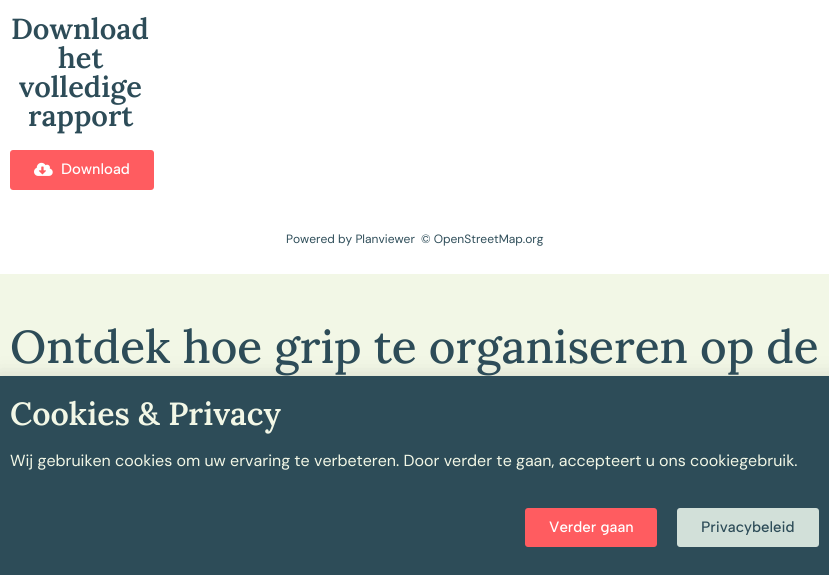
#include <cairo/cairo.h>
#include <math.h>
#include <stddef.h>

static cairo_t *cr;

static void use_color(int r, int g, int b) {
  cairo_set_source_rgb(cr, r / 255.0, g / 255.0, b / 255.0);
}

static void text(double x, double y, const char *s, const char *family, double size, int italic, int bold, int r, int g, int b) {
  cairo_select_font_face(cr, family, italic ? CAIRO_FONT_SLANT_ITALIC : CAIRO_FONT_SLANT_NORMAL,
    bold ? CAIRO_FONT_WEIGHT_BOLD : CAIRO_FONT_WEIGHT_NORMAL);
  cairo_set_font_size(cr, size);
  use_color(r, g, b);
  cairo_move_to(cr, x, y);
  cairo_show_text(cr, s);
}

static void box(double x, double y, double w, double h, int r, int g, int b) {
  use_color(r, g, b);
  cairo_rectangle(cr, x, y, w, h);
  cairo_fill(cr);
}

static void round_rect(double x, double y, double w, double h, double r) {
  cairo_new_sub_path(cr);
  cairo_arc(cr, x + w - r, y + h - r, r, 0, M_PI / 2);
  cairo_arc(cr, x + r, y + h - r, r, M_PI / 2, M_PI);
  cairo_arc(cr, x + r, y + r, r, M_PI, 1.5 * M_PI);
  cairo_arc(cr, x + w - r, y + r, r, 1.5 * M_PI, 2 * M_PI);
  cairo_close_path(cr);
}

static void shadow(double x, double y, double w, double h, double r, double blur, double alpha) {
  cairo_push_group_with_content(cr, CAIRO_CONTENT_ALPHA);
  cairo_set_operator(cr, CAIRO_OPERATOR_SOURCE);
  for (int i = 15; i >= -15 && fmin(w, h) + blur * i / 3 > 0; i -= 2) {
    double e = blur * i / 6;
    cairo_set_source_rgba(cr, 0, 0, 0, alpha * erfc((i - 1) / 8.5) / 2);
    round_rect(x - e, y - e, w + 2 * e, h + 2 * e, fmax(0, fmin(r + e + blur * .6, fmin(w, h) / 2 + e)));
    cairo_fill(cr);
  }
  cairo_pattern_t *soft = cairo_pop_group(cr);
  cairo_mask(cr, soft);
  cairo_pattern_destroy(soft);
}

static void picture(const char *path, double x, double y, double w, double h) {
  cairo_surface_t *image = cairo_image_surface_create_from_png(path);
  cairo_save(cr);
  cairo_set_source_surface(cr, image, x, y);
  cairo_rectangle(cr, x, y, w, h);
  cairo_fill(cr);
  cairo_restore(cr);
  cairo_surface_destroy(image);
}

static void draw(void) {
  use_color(242, 247, 230);
  cairo_paint(cr);
  box(0, 0, 829, 274, 255, 255, 255);
  use_color(255, 92, 96);
  round_rect(10, 150, 144, 40, 3);
  cairo_fill(cr);
  picture("img_01.png", 34, 162, 19, 14);
  use_color(0, 0, 0);
  shadow(-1, 381, 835, 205, 0, 11.5, 0.2);
  box(0, 376, 829, 199, 45, 76, 88);
  use_color(255, 92, 96);
  round_rect(525, 508, 132, 39, 3);
  cairo_fill(cr);
  use_color(210, 224, 217);
  round_rect(677, 508, 142, 39, 3);
  cairo_fill(cr);
  text(11, 39, "Download", "Lora SemiBold", 29, 0, 0, 45, 76, 88);
  text(58, 68, "het", "Lora SemiBold", 29, 0, 0, 45, 76, 88);
  text(19, 97, "volledige", "Lora SemiBold", 29, 0, 0, 45, 76, 88);
  text(28, 126, "rapport", "Lora SemiBold", 29, 0, 0, 45, 76, 88);
  text(61, 174, "Download", "Albert Sans Medium", 15, 0, 0, 255, 255, 255);
  text(286, 243, "Powered by Planviewer", "DM Sans", 12, 0, 0, 45, 76, 88);
  text(421, 243, "© OpenStreetMap.org", "DM Sans", 12, 0, 0, 45, 76, 88);
  text(10, 363, "Ontdek hoe grip te organiseren op de", "Lora Medium", 46, 0, 0, 45, 76, 88);
  text(10, 425, "Cookies & Privacy", "Lora SemiBold", 32, 0, 0, 242, 247, 230);
  text(10, 466, "Wij gebruiken cookies om uw ervaring te verbeteren. Door verder te gaan, accepteert u ons cookiegebruik.", "DM Sans", 16, 0, 0, 242, 247, 230);
  text(549, 532, "Verder gaan", "Albert Sans Medium", 15, 0, 0, 255, 255, 255);
  text(701, 532, "Privacybeleid", "Albert Sans Medium", 15, 0, 0, 45, 76, 88);
}

int main(void) {
  cairo_surface_t *surface = cairo_image_surface_create(CAIRO_FORMAT_RGB24, 829, 575);
  cr = cairo_create(surface);
  cairo_font_options_t *options = cairo_font_options_create();
  cairo_font_options_set_hint_metrics(options, CAIRO_HINT_METRICS_OFF);
  cairo_font_options_set_hint_style(options, CAIRO_HINT_STYLE_NONE);
  cairo_set_font_options(cr, options);
  cairo_set_miter_limit(cr, 4);
  draw();
  cairo_surface_write_to_png(surface, "out.png");
  cairo_font_options_destroy(options);
  cairo_destroy(cr);
  cairo_surface_destroy(surface);
  return 0;
}
